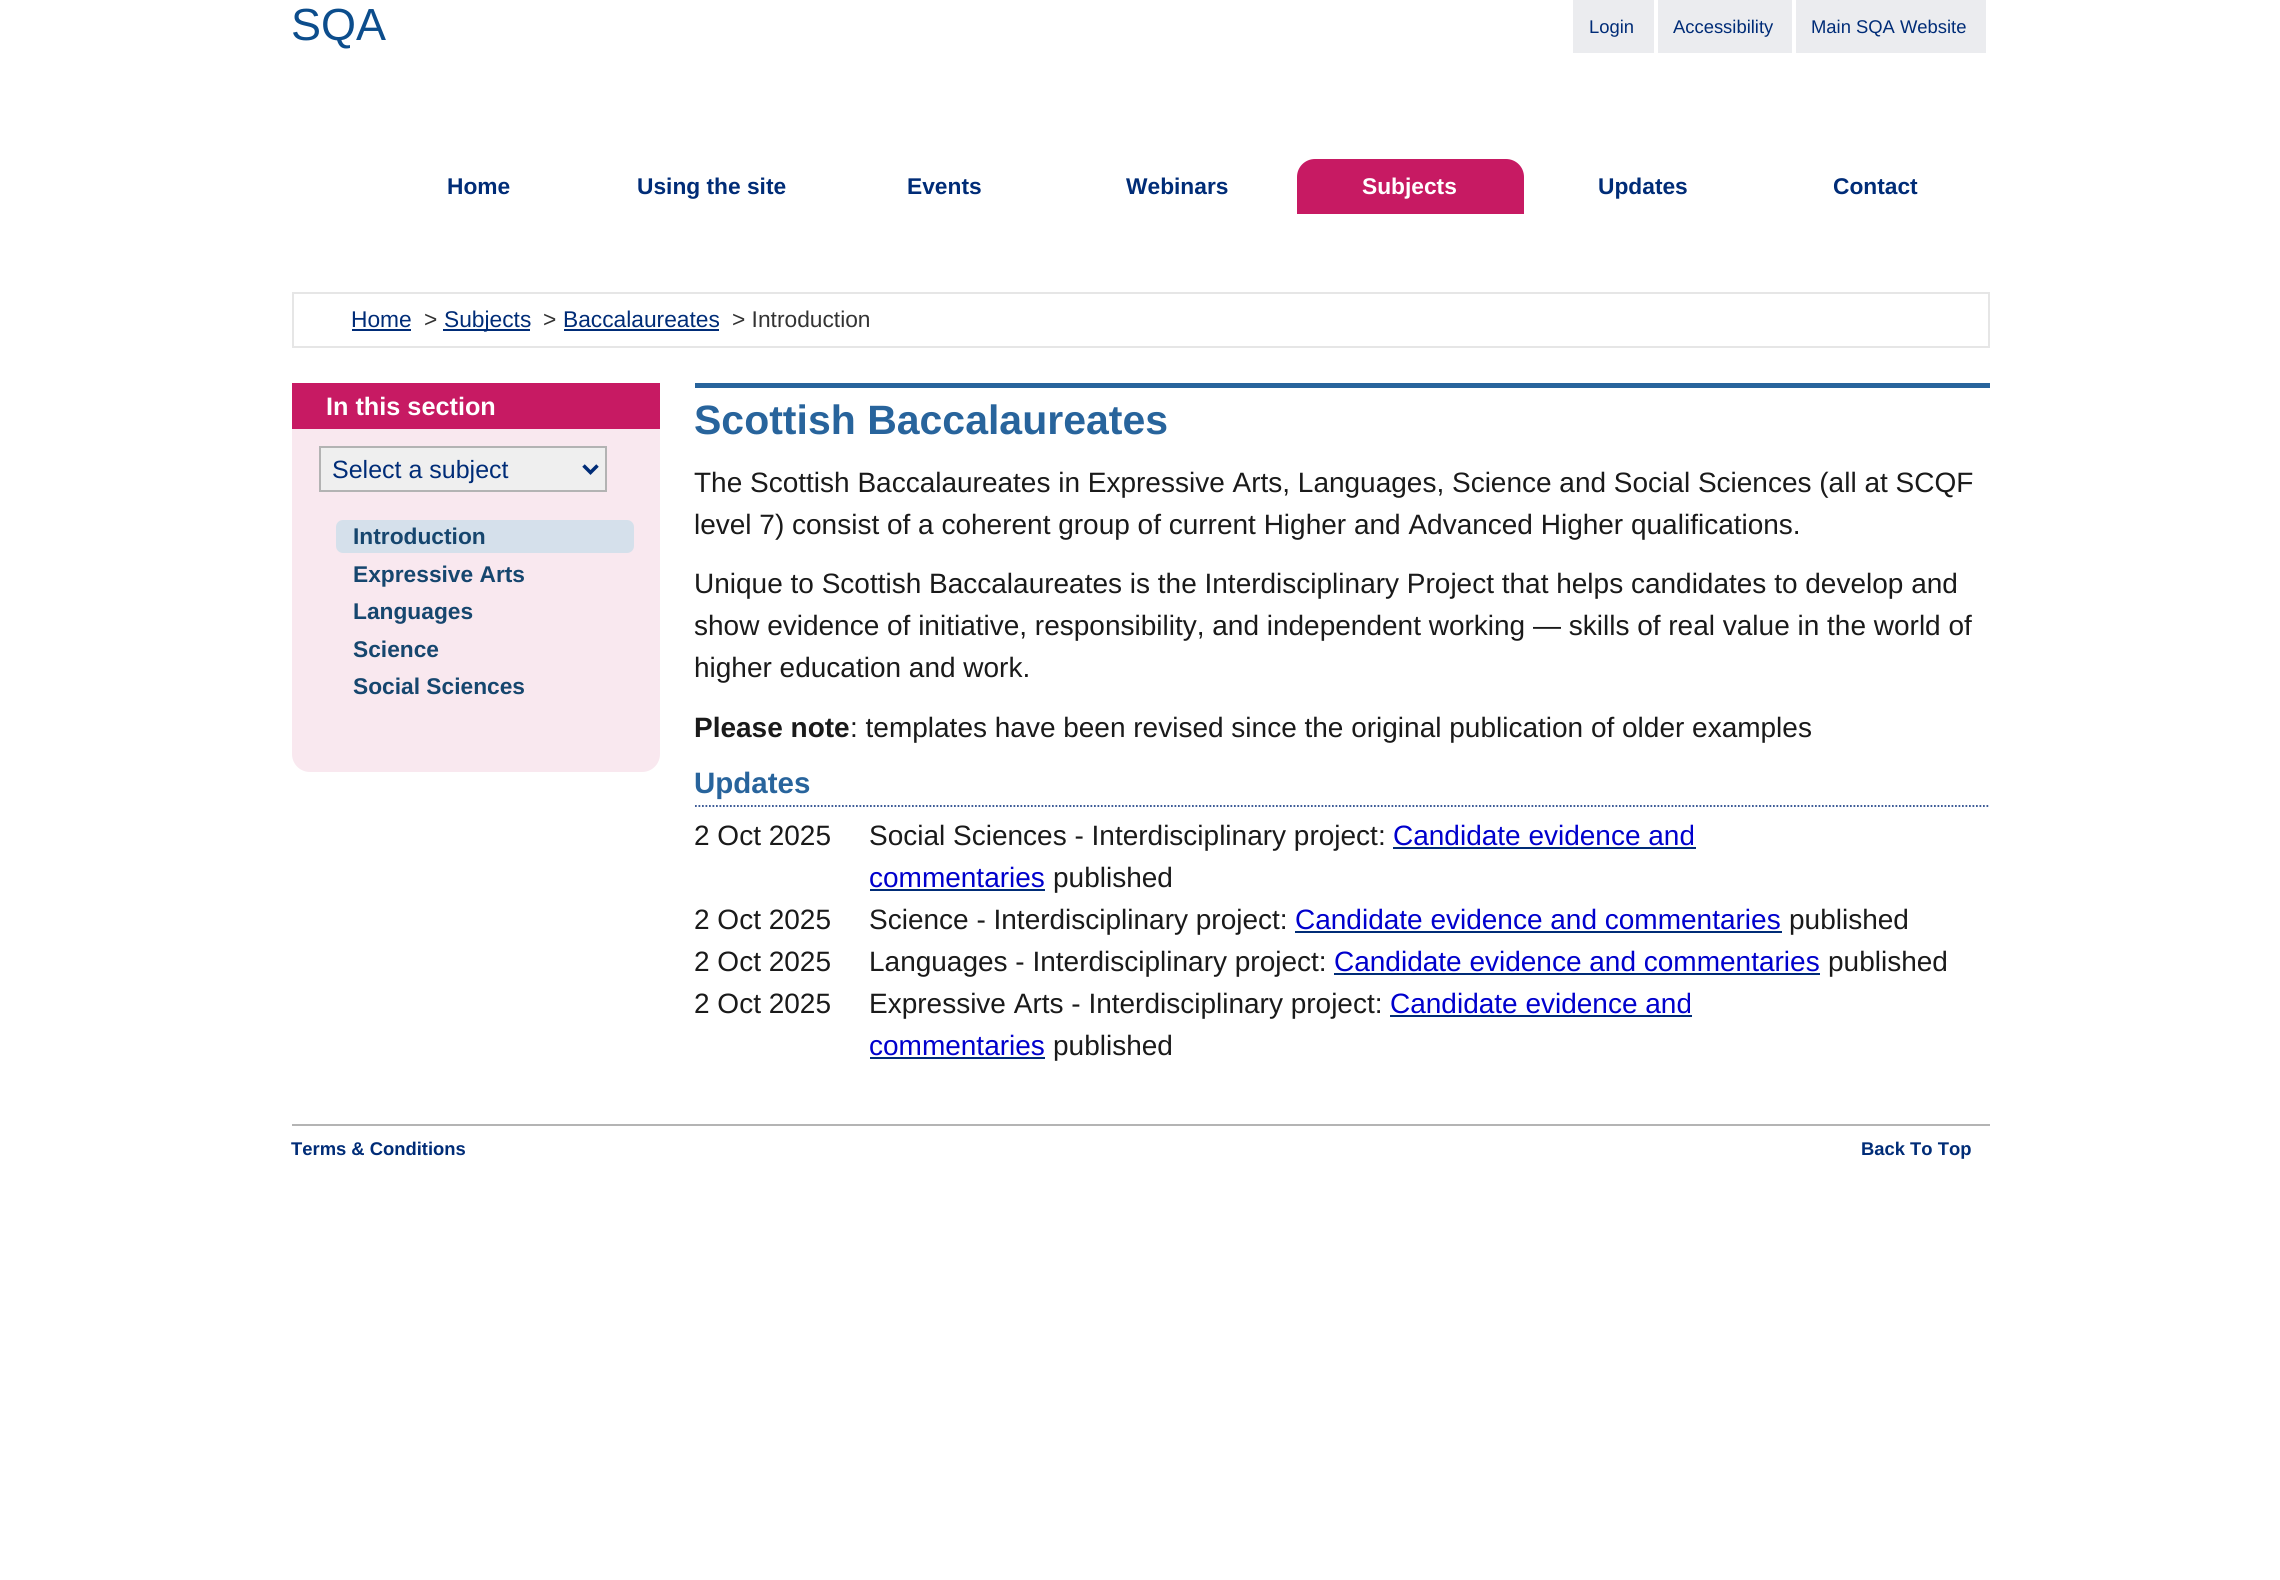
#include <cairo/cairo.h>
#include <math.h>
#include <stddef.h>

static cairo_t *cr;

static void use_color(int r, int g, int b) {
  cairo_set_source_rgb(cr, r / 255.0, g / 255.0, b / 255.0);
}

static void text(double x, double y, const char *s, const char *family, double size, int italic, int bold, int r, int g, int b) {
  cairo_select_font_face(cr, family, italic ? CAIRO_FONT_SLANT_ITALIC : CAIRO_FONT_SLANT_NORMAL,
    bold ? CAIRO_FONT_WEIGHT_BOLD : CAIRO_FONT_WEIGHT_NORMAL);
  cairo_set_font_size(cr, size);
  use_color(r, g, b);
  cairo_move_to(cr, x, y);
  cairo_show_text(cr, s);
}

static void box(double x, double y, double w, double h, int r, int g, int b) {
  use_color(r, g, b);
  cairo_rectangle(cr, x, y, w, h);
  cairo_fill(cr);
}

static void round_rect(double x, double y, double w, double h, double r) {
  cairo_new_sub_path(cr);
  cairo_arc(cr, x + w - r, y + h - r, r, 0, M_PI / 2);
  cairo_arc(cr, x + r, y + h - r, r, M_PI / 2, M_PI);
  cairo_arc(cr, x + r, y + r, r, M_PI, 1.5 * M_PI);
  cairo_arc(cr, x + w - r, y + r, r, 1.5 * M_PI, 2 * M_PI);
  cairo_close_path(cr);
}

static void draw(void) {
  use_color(255, 255, 255);
  cairo_paint(cr);
  box(1573, 0, 413, 53, 235, 236, 239);
  box(1654, 0, 4, 53, 255, 255, 255);
  box(1792, 0, 4, 53, 255, 255, 255);
  use_color(199, 26, 99);
  cairo_new_path(cr);
  cairo_move_to(cr, 1315, 159);
  cairo_line_to(cr, 1506, 159);
  cairo_curve_to(cr, 1516, 159, 1524, 167, 1524, 177);
  cairo_line_to(cr, 1524, 214);
  cairo_line_to(cr, 1297, 214);
  cairo_line_to(cr, 1297, 177);
  cairo_curve_to(cr, 1297, 167, 1305, 159, 1315, 159);
  cairo_close_path(cr);
  cairo_fill(cr);
  cairo_rectangle(cr, 293, 293, 1696, 54);
  use_color(230, 230, 230);
  cairo_stroke(cr);
  box(352, 329, 59, 2, 0, 44, 119);
  box(443, 329, 87, 2, 0, 44, 119);
  box(564, 329, 155, 2, 0, 44, 119);
  use_color(249, 232, 239);
  cairo_new_path(cr);
  cairo_move_to(cr, 292, 383);
  cairo_line_to(cr, 660, 383);
  cairo_line_to(cr, 660, 754);
  cairo_curve_to(cr, 660, 764, 652, 772, 642, 772);
  cairo_line_to(cr, 310, 772);
  cairo_curve_to(cr, 300, 772, 292, 764, 292, 754);
  cairo_close_path(cr);
  cairo_fill(cr);
  box(292, 383, 368, 46, 199, 26, 99);
  use_color(239, 239, 239);
  cairo_rectangle(cr, 320, 447, 286, 44);
  cairo_fill_preserve(cr);
  use_color(179, 179, 179);
  cairo_stroke(cr);
  cairo_new_path(cr);
  cairo_move_to(cr, 583.5, 465.5);
  cairo_line_to(cr, 590.5, 472.5);
  cairo_line_to(cr, 597.5, 465.5);
  use_color(0, 44, 119);
  cairo_set_line_width(cr, 3.5);
  cairo_stroke(cr);
  use_color(213, 224, 235);
  round_rect(336, 520, 298, 33, 7);
  cairo_fill(cr);
  box(695, 383, 1295, 5, 40, 100, 156);
  cairo_new_path(cr);
  cairo_move_to(cr, 695, 806);
  cairo_line_to(cr, 1990, 806);
  use_color(41, 74, 140);
  cairo_set_line_width(cr, 1.8);
  cairo_set_dash(cr, (double[]){1.75, 1.75}, 2, 0);
  cairo_stroke(cr);
  box(1393, 847, 303, 2, 0, 44, 119);
  box(870, 889, 175, 2, 0, 44, 119);
  box(1295, 931, 487, 2, 0, 44, 119);
  box(1334, 973, 486, 2, 0, 44, 119);
  box(1390, 1015, 302, 2, 0, 44, 119);
  box(870, 1057, 175, 2, 0, 44, 119);
  box(292, 1124, 1698, 2, 180, 180, 180);
  text(291, 40, "SQA", "Liberation Sans", 45, 0, 0, 12, 77, 140);
  text(1589, 33, "Login", "Liberation Sans", 18.4, 0, 0, 0, 44, 119);
  text(1673, 33, "Accessibility", "Liberation Sans", 18.4, 0, 0, 0, 44, 119);
  text(1811, 33, "Main SQA Website", "Liberation Sans", 18.4, 0, 0, 0, 44, 119);
  text(447, 194, "Home", "Liberation Sans", 22.75, 0, 1, 0, 44, 119);
  text(637, 194, "Using the site", "Liberation Sans", 22.75, 0, 1, 0, 44, 119);
  text(907, 194, "Events", "Liberation Sans", 22.75, 0, 1, 0, 44, 119);
  text(1126, 194, "Webinars", "Liberation Sans", 22.75, 0, 1, 0, 44, 119);
  text(1362, 194, "Subjects", "Liberation Sans", 22.75, 0, 1, 255, 255, 255);
  text(1598, 194, "Updates", "Liberation Sans", 22.75, 0, 1, 0, 44, 119);
  text(1833, 194, "Contact", "Liberation Sans", 22.75, 0, 1, 0, 44, 119);
  text(351, 327, "Home", "Liberation Sans", 22.75, 0, 0, 0, 44, 119);
  text(424, 327, ">", "Liberation Sans", 22.75, 0, 0, 51, 51, 51);
  text(444, 327, "Subjects", "Liberation Sans", 22.75, 0, 0, 0, 44, 119);
  text(543, 327, ">", "Liberation Sans", 22.75, 0, 0, 51, 51, 51);
  text(563, 327, "Baccalaureates", "Liberation Sans", 22.75, 0, 0, 0, 44, 119);
  text(732, 327, "> Introduction", "Liberation Sans", 22.75, 0, 0, 51, 51, 51);
  text(326, 415, "In this section", "Liberation Sans", 25.25, 0, 1, 255, 255, 255);
  text(332, 478, "Select a subject", "Liberation Sans", 25, 0, 0, 0, 44, 119);
  text(353, 544, "Introduction", "Liberation Sans", 22.75, 0, 1, 22, 70, 110);
  text(353, 582, "Expressive Arts", "Liberation Sans", 22.75, 0, 1, 22, 70, 110);
  text(353, 619, "Languages", "Liberation Sans", 22.75, 0, 1, 22, 70, 110);
  text(353, 657, "Science", "Liberation Sans", 22.75, 0, 1, 22, 70, 110);
  text(353, 694, "Social Sciences", "Liberation Sans", 22.75, 0, 1, 22, 70, 110);
  text(694, 434, "Scottish Baccalaureates", "Liberation Sans", 41, 0, 1, 40, 100, 156);
  text(694, 492, "The Scottish Baccalaureates in Expressive Arts, Languages, Science and Social Sciences (all at SCQF", "Liberation Sans", 28, 0, 0, 26, 26, 26);
  text(694, 534, "level 7) consist of a coherent group of current Higher and Advanced Higher qualifications.", "Liberation Sans", 28, 0, 0, 26, 26, 26);
  text(694, 593, "Unique to Scottish Baccalaureates is the Interdisciplinary Project that helps candidates to develop and", "Liberation Sans", 28, 0, 0, 26, 26, 26);
  text(694, 635, "show evidence of initiative, responsibility, and independent working — skills of real value in the world of", "Liberation Sans", 28, 0, 0, 26, 26, 26);
  text(694, 677, "higher education and work.", "Liberation Sans", 28, 0, 0, 26, 26, 26);
  text(694, 737, "Please note", "Liberation Sans", 28, 0, 1, 26, 26, 26);
  text(850, 737, ": templates have been revised since the original publication of older examples", "Liberation Sans", 28, 0, 0, 26, 26, 26);
  text(694, 793, "Updates", "Liberation Sans", 29.5, 0, 1, 40, 100, 156);
  text(694, 845, "2 Oct 2025", "Liberation Sans", 28, 0, 0, 26, 26, 26);
  text(869, 845, "Social Sciences - Interdisciplinary project:", "Liberation Sans", 28, 0, 0, 26, 26, 26);
  text(1393, 845, "Candidate evidence and", "Liberation Sans", 28, 0, 0, 0, 0, 205);
  text(869, 887, "commentaries", "Liberation Sans", 28, 0, 0, 0, 0, 205);
  text(1053, 887, "published", "Liberation Sans", 28, 0, 0, 26, 26, 26);
  text(694, 929, "2 Oct 2025", "Liberation Sans", 28, 0, 0, 26, 26, 26);
  text(869, 929, "Science - Interdisciplinary project:", "Liberation Sans", 28, 0, 0, 26, 26, 26);
  text(1295, 929, "Candidate evidence and commentaries", "Liberation Sans", 28, 0, 0, 0, 0, 205);
  text(1789, 929, "published", "Liberation Sans", 28, 0, 0, 26, 26, 26);
  text(694, 971, "2 Oct 2025", "Liberation Sans", 28, 0, 0, 26, 26, 26);
  text(869, 971, "Languages - Interdisciplinary project:", "Liberation Sans", 28, 0, 0, 26, 26, 26);
  text(1334, 971, "Candidate evidence and commentaries", "Liberation Sans", 28, 0, 0, 0, 0, 205);
  text(1828, 971, "published", "Liberation Sans", 28, 0, 0, 26, 26, 26);
  text(694, 1013, "2 Oct 2025", "Liberation Sans", 28, 0, 0, 26, 26, 26);
  text(869, 1013, "Expressive Arts - Interdisciplinary project:", "Liberation Sans", 28, 0, 0, 26, 26, 26);
  text(1390, 1013, "Candidate evidence and", "Liberation Sans", 28, 0, 0, 0, 0, 205);
  text(869, 1055, "commentaries", "Liberation Sans", 28, 0, 0, 0, 0, 205);
  text(1053, 1055, "published", "Liberation Sans", 28, 0, 0, 26, 26, 26);
  text(291, 1155, "Terms & Conditions", "Liberation Sans", 18.4, 0, 1, 0, 44, 119);
  text(1861, 1155, "Back To Top", "Liberation Sans", 18.4, 0, 1, 0, 44, 119);
}

int main(void) {
  cairo_surface_t *surface = cairo_image_surface_create(CAIRO_FORMAT_RGB24, 2280, 1580);
  cr = cairo_create(surface);
  cairo_font_options_t *options = cairo_font_options_create();
  cairo_font_options_set_hint_metrics(options, CAIRO_HINT_METRICS_OFF);
  cairo_font_options_set_hint_style(options, CAIRO_HINT_STYLE_NONE);
  cairo_set_font_options(cr, options);
  cairo_set_miter_limit(cr, 4);
  draw();
  cairo_surface_write_to_png(surface, "out.png");
  cairo_font_options_destroy(options);
  cairo_destroy(cr);
  cairo_surface_destroy(surface);
  return 0;
}
